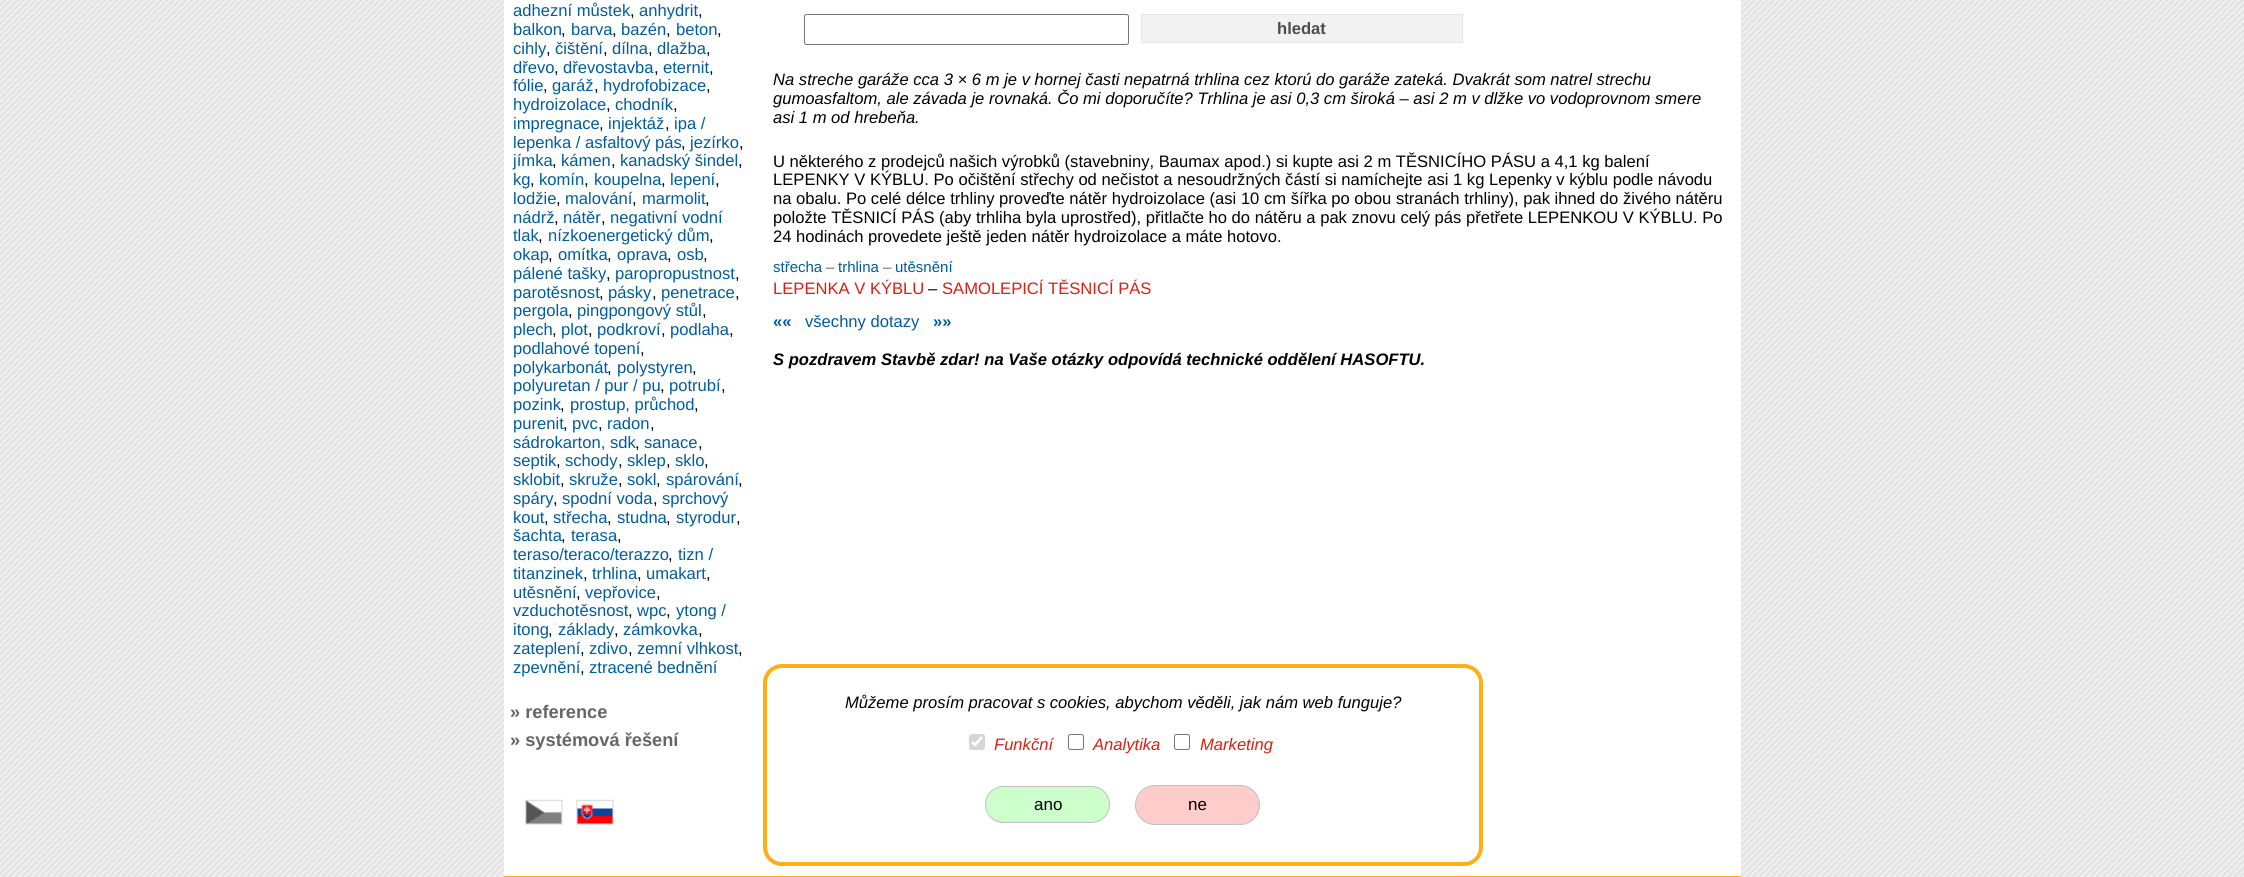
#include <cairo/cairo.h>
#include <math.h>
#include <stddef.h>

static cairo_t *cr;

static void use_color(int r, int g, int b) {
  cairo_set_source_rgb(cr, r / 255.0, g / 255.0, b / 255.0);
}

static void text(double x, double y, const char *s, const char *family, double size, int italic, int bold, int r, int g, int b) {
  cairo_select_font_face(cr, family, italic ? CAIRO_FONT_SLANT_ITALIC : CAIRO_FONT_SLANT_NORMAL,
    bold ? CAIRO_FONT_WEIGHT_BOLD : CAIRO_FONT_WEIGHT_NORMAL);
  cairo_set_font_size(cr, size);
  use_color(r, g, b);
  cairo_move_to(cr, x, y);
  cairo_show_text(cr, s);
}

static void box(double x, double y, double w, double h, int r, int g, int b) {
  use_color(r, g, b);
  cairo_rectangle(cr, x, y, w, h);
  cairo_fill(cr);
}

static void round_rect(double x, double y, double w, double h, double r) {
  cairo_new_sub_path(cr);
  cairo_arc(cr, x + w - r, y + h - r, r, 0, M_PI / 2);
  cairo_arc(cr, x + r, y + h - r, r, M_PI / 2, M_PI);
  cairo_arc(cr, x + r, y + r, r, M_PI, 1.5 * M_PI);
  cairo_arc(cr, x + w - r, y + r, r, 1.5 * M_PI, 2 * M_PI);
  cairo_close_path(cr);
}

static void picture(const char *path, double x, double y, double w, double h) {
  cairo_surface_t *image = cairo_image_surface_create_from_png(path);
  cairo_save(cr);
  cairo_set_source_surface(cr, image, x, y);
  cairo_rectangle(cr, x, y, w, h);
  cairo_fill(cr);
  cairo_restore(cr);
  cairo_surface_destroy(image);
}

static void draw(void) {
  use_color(255, 255, 255);
  cairo_paint(cr);
  picture("img_01.png", 0, 0, 2244, 877);
  box(504, 0, 1237, 876, 255, 255, 255);
  picture("img_02.png", 525, 799, 38, 26);
  picture("img_03.png", 576, 799, 38, 26);
  round_rect(804.5, 14.5, 324, 30, 2);
  use_color(118, 118, 118);
  cairo_set_line_width(cr, 1);
  cairo_stroke(cr);
  use_color(242, 242, 242);
  cairo_rectangle(cr, 1141.5, 14.5, 321, 28);
  cairo_fill_preserve(cr);
  use_color(228, 228, 228);
  cairo_stroke(cr);
  box(504, 876, 1237, 1, 252, 175, 23);
  round_rect(765, 666, 716, 198, 17);
  cairo_set_line_width(cr, 4);
  cairo_stroke(cr);
  use_color(214, 214, 214);
  round_rect(969, 734, 16, 16, 2.5);
  cairo_fill(cr);
  cairo_new_path(cr);
  cairo_move_to(cr, 972, 742);
  cairo_line_to(cr, 975, 745);
  cairo_line_to(cr, 982, 737);
  use_color(255, 255, 255);
  cairo_set_line_width(cr, 2.6);
  cairo_stroke(cr);
  round_rect(1068.5, 734.5, 15, 15, 2);
  use_color(118, 118, 118);
  cairo_set_line_width(cr, 1);
  cairo_stroke(cr);
  round_rect(1174.5, 734.5, 15, 15, 2);
  cairo_stroke(cr);
  use_color(204, 255, 204);
  round_rect(985.5, 786.5, 124, 36, 18);
  cairo_fill_preserve(cr);
  use_color(192, 192, 192);
  cairo_stroke(cr);
  use_color(255, 204, 204);
  round_rect(1135.5, 785.5, 124, 39, 19.5);
  cairo_fill_preserve(cr);
  use_color(192, 192, 192);
  cairo_stroke(cr);
  text(513, 16, "adhezní můstek", "Liberation Sans", 16.6, 0, 0, 0, 92, 157);
  text(630, 16, ",", "Liberation Sans", 16.6, 0, 0, 0, 0, 0);
  text(639, 16, "anhydrit", "Liberation Sans", 16.6, 0, 0, 0, 92, 157);
  text(698, 16, ",", "Liberation Sans", 16.6, 0, 0, 0, 0, 0);
  text(513, 35, "balkon", "Liberation Sans", 16.6, 0, 0, 0, 92, 157);
  text(561, 35, ",", "Liberation Sans", 16.6, 0, 0, 0, 0, 0);
  text(571, 35, "barva", "Liberation Sans", 16.6, 0, 0, 0, 92, 157);
  text(612, 35, ",", "Liberation Sans", 16.6, 0, 0, 0, 0, 0);
  text(621, 35, "bazén", "Liberation Sans", 16.6, 0, 0, 0, 92, 157);
  text(666, 35, ",", "Liberation Sans", 16.6, 0, 0, 0, 0, 0);
  text(676, 35, "beton", "Liberation Sans", 16.6, 0, 0, 0, 92, 157);
  text(717, 35, ",", "Liberation Sans", 16.6, 0, 0, 0, 0, 0);
  text(513, 54, "cihly", "Liberation Sans", 16.6, 0, 0, 0, 92, 157);
  text(546, 54, ",", "Liberation Sans", 16.6, 0, 0, 0, 0, 0);
  text(555, 54, "čištění", "Liberation Sans", 16.6, 0, 0, 0, 92, 157);
  text(603, 54, ",", "Liberation Sans", 16.6, 0, 0, 0, 0, 0);
  text(612, 54, "dílna", "Liberation Sans", 16.6, 0, 0, 0, 92, 157);
  text(648, 54, ",", "Liberation Sans", 16.6, 0, 0, 0, 0, 0);
  text(657, 54, "dlažba", "Liberation Sans", 16.6, 0, 0, 0, 92, 157);
  text(706, 54, ",", "Liberation Sans", 16.6, 0, 0, 0, 0, 0);
  text(513, 73, "dřevo", "Liberation Sans", 16.6, 0, 0, 0, 92, 157);
  text(554, 73, ",", "Liberation Sans", 16.6, 0, 0, 0, 0, 0);
  text(563, 73, "dřevostavba", "Liberation Sans", 16.6, 0, 0, 0, 92, 157);
  text(654, 73, ",", "Liberation Sans", 16.6, 0, 0, 0, 0, 0);
  text(663, 73, "eternit", "Liberation Sans", 16.6, 0, 0, 0, 92, 157);
  text(709, 73, ",", "Liberation Sans", 16.6, 0, 0, 0, 0, 0);
  text(513, 91, "fólie", "Liberation Sans", 16.6, 0, 0, 0, 92, 157);
  text(543, 91, ",", "Liberation Sans", 16.6, 0, 0, 0, 0, 0);
  text(552, 91, "garáž", "Liberation Sans", 16.6, 0, 0, 0, 92, 157);
  text(594, 91, ",", "Liberation Sans", 16.6, 0, 0, 0, 0, 0);
  text(603, 91, "hydrofobizace", "Liberation Sans", 16.6, 0, 0, 0, 92, 157);
  text(706, 91, ",", "Liberation Sans", 16.6, 0, 0, 0, 0, 0);
  text(513, 110, "hydroizolace", "Liberation Sans", 16.6, 0, 0, 0, 92, 157);
  text(606, 110, ",", "Liberation Sans", 16.6, 0, 0, 0, 0, 0);
  text(615, 110, "chodník", "Liberation Sans", 16.6, 0, 0, 0, 92, 157);
  text(673, 110, ",", "Liberation Sans", 16.6, 0, 0, 0, 0, 0);
  text(513, 129, "impregnace", "Liberation Sans", 16.6, 0, 0, 0, 92, 157);
  text(599, 129, ",", "Liberation Sans", 16.6, 0, 0, 0, 0, 0);
  text(608, 129, "injektáž", "Liberation Sans", 16.6, 0, 0, 0, 92, 157);
  text(665, 129, ",", "Liberation Sans", 16.6, 0, 0, 0, 0, 0);
  text(674, 129, "ipa /", "Liberation Sans", 16.6, 0, 0, 0, 92, 157);
  text(513, 148, "lepenka / asfaltový pás", "Liberation Sans", 16.6, 0, 0, 0, 92, 157);
  text(681, 148, ",", "Liberation Sans", 16.6, 0, 0, 0, 0, 0);
  text(690, 148, "jezírko", "Liberation Sans", 16.6, 0, 0, 0, 92, 157);
  text(739, 148, ",", "Liberation Sans", 16.6, 0, 0, 0, 0, 0);
  text(513, 166, "jímka", "Liberation Sans", 16.6, 0, 0, 0, 92, 157);
  text(552, 166, ",", "Liberation Sans", 16.6, 0, 0, 0, 0, 0);
  text(561, 166, "kámen", "Liberation Sans", 16.6, 0, 0, 0, 92, 157);
  text(611, 166, ",", "Liberation Sans", 16.6, 0, 0, 0, 0, 0);
  text(620, 166, "kanadský šindel", "Liberation Sans", 16.6, 0, 0, 0, 92, 157);
  text(738, 166, ",", "Liberation Sans", 16.6, 0, 0, 0, 0, 0);
  text(513, 185, "kg", "Liberation Sans", 16.6, 0, 0, 0, 92, 157);
  text(530, 185, ",", "Liberation Sans", 16.6, 0, 0, 0, 0, 0);
  text(539, 185, "komín", "Liberation Sans", 16.6, 0, 0, 0, 92, 157);
  text(584, 185, ",", "Liberation Sans", 16.6, 0, 0, 0, 0, 0);
  text(594, 185, "koupelna", "Liberation Sans", 16.6, 0, 0, 0, 92, 157);
  text(661, 185, ",", "Liberation Sans", 16.6, 0, 0, 0, 0, 0);
  text(670, 185, "lepení", "Liberation Sans", 16.6, 0, 0, 0, 92, 157);
  text(715, 185, ",", "Liberation Sans", 16.6, 0, 0, 0, 0, 0);
  text(513, 204, "lodžie", "Liberation Sans", 16.6, 0, 0, 0, 92, 157);
  text(556, 204, ",", "Liberation Sans", 16.6, 0, 0, 0, 0, 0);
  text(565, 204, "malování", "Liberation Sans", 16.6, 0, 0, 0, 92, 157);
  text(632, 204, ",", "Liberation Sans", 16.6, 0, 0, 0, 0, 0);
  text(642, 204, "marmolit", "Liberation Sans", 16.6, 0, 0, 0, 92, 157);
  text(705, 204, ",", "Liberation Sans", 16.6, 0, 0, 0, 0, 0);
  text(513, 223, "nádrž", "Liberation Sans", 16.6, 0, 0, 0, 92, 157);
  text(554, 223, ",", "Liberation Sans", 16.6, 0, 0, 0, 0, 0);
  text(563, 223, "nátěr", "Liberation Sans", 16.6, 0, 0, 0, 92, 157);
  text(601, 223, ",", "Liberation Sans", 16.6, 0, 0, 0, 0, 0);
  text(610, 223, "negativní vodní", "Liberation Sans", 16.6, 0, 0, 0, 92, 157);
  text(513, 241, "tlak", "Liberation Sans", 16.6, 0, 0, 0, 92, 157);
  text(538, 241, ",", "Liberation Sans", 16.6, 0, 0, 0, 0, 0);
  text(548, 241, "nízkoenergetický dům", "Liberation Sans", 16.6, 0, 0, 0, 92, 157);
  text(709, 241, ",", "Liberation Sans", 16.6, 0, 0, 0, 0, 0);
  text(513, 260, "okap", "Liberation Sans", 16.6, 0, 0, 0, 92, 157);
  text(548, 260, ",", "Liberation Sans", 16.6, 0, 0, 0, 0, 0);
  text(558, 260, "omítka", "Liberation Sans", 16.6, 0, 0, 0, 92, 157);
  text(607, 260, ",", "Liberation Sans", 16.6, 0, 0, 0, 0, 0);
  text(617, 260, "oprava", "Liberation Sans", 16.6, 0, 0, 0, 92, 157);
  text(667, 260, ",", "Liberation Sans", 16.6, 0, 0, 0, 0, 0);
  text(677, 260, "osb", "Liberation Sans", 16.6, 0, 0, 0, 92, 157);
  text(703, 260, ",", "Liberation Sans", 16.6, 0, 0, 0, 0, 0);
  text(513, 279, "pálené tašky", "Liberation Sans", 16.6, 0, 0, 0, 92, 157);
  text(606, 279, ",", "Liberation Sans", 16.6, 0, 0, 0, 0, 0);
  text(615, 279, "paropropustnost", "Liberation Sans", 16.6, 0, 0, 0, 92, 157);
  text(735, 279, ",", "Liberation Sans", 16.6, 0, 0, 0, 0, 0);
  text(513, 298, "parotěsnost", "Liberation Sans", 16.6, 0, 0, 0, 92, 157);
  text(599, 298, ",", "Liberation Sans", 16.6, 0, 0, 0, 0, 0);
  text(608, 298, "pásky", "Liberation Sans", 16.6, 0, 0, 0, 92, 157);
  text(652, 298, ",", "Liberation Sans", 16.6, 0, 0, 0, 0, 0);
  text(661, 298, "penetrace", "Liberation Sans", 16.6, 0, 0, 0, 92, 157);
  text(735, 298, ",", "Liberation Sans", 16.6, 0, 0, 0, 0, 0);
  text(513, 316, "pergola", "Liberation Sans", 16.6, 0, 0, 0, 92, 157);
  text(568, 316, ",", "Liberation Sans", 16.6, 0, 0, 0, 0, 0);
  text(577, 316, "pingpongový stůl", "Liberation Sans", 16.6, 0, 0, 0, 92, 157);
  text(702, 316, ",", "Liberation Sans", 16.6, 0, 0, 0, 0, 0);
  text(513, 335, "plech", "Liberation Sans", 16.6, 0, 0, 0, 92, 157);
  text(552, 335, ",", "Liberation Sans", 16.6, 0, 0, 0, 0, 0);
  text(561, 335, "plot", "Liberation Sans", 16.6, 0, 0, 0, 92, 157);
  text(588, 335, ",", "Liberation Sans", 16.6, 0, 0, 0, 0, 0);
  text(597, 335, "podkroví", "Liberation Sans", 16.6, 0, 0, 0, 92, 157);
  text(661, 335, ",", "Liberation Sans", 16.6, 0, 0, 0, 0, 0);
  text(670, 335, "podlaha", "Liberation Sans", 16.6, 0, 0, 0, 92, 157);
  text(729, 335, ",", "Liberation Sans", 16.6, 0, 0, 0, 0, 0);
  text(513, 354, "podlahové topení", "Liberation Sans", 16.6, 0, 0, 0, 92, 157);
  text(640, 354, ",", "Liberation Sans", 16.6, 0, 0, 0, 0, 0);
  text(513, 373, "polykarbonát", "Liberation Sans", 16.6, 0, 0, 0, 92, 157);
  text(607, 373, ",", "Liberation Sans", 16.6, 0, 0, 0, 0, 0);
  text(617, 373, "polystyren", "Liberation Sans", 16.6, 0, 0, 0, 92, 157);
  text(692, 373, ",", "Liberation Sans", 16.6, 0, 0, 0, 0, 0);
  text(513, 391, "polyuretan / pur / pu", "Liberation Sans", 16.6, 0, 0, 0, 92, 157);
  text(660, 391, ",", "Liberation Sans", 16.6, 0, 0, 0, 0, 0);
  text(669, 391, "potrubí", "Liberation Sans", 16.6, 0, 0, 0, 92, 157);
  text(721, 391, ",", "Liberation Sans", 16.6, 0, 0, 0, 0, 0);
  text(513, 410, "pozink", "Liberation Sans", 16.6, 0, 0, 0, 92, 157);
  text(560, 410, ",", "Liberation Sans", 16.6, 0, 0, 0, 0, 0);
  text(570, 410, "prostup, průchod", "Liberation Sans", 16.6, 0, 0, 0, 92, 157);
  text(694, 410, ",", "Liberation Sans", 16.6, 0, 0, 0, 0, 0);
  text(513, 429, "purenit", "Liberation Sans", 16.6, 0, 0, 0, 92, 157);
  text(563, 429, ",", "Liberation Sans", 16.6, 0, 0, 0, 0, 0);
  text(572, 429, "pvc", "Liberation Sans", 16.6, 0, 0, 0, 92, 157);
  text(598, 429, ",", "Liberation Sans", 16.6, 0, 0, 0, 0, 0);
  text(607, 429, "radon", "Liberation Sans", 16.6, 0, 0, 0, 92, 157);
  text(650, 429, ",", "Liberation Sans", 16.6, 0, 0, 0, 0, 0);
  text(513, 448, "sádrokarton, sdk", "Liberation Sans", 16.6, 0, 0, 0, 92, 157);
  text(635, 448, ",", "Liberation Sans", 16.6, 0, 0, 0, 0, 0);
  text(644, 448, "sanace", "Liberation Sans", 16.6, 0, 0, 0, 92, 157);
  text(698, 448, ",", "Liberation Sans", 16.6, 0, 0, 0, 0, 0);
  text(513, 466, "septik", "Liberation Sans", 16.6, 0, 0, 0, 92, 157);
  text(556, 466, ",", "Liberation Sans", 16.6, 0, 0, 0, 0, 0);
  text(565, 466, "schody", "Liberation Sans", 16.6, 0, 0, 0, 92, 157);
  text(618, 466, ",", "Liberation Sans", 16.6, 0, 0, 0, 0, 0);
  text(627, 466, "sklep", "Liberation Sans", 16.6, 0, 0, 0, 92, 157);
  text(666, 466, ",", "Liberation Sans", 16.6, 0, 0, 0, 0, 0);
  text(675, 466, "sklo", "Liberation Sans", 16.6, 0, 0, 0, 92, 157);
  text(704, 466, ",", "Liberation Sans", 16.6, 0, 0, 0, 0, 0);
  text(513, 485, "sklobit", "Liberation Sans", 16.6, 0, 0, 0, 92, 157);
  text(560, 485, ",", "Liberation Sans", 16.6, 0, 0, 0, 0, 0);
  text(569, 485, "skruže", "Liberation Sans", 16.6, 0, 0, 0, 92, 157);
  text(618, 485, ",", "Liberation Sans", 16.6, 0, 0, 0, 0, 0);
  text(627, 485, "sokl", "Liberation Sans", 16.6, 0, 0, 0, 92, 157);
  text(656, 485, ",", "Liberation Sans", 16.6, 0, 0, 0, 0, 0);
  text(666, 485, "spárování", "Liberation Sans", 16.6, 0, 0, 0, 92, 157);
  text(738, 485, ",", "Liberation Sans", 16.6, 0, 0, 0, 0, 0);
  text(513, 504, "spáry", "Liberation Sans", 16.6, 0, 0, 0, 92, 157);
  text(553, 504, ",", "Liberation Sans", 16.6, 0, 0, 0, 0, 0);
  text(562, 504, "spodní voda", "Liberation Sans", 16.6, 0, 0, 0, 92, 157);
  text(653, 504, ",", "Liberation Sans", 16.6, 0, 0, 0, 0, 0);
  text(662, 504, "sprchový", "Liberation Sans", 16.6, 0, 0, 0, 92, 157);
  text(513, 523, "kout", "Liberation Sans", 16.6, 0, 0, 0, 92, 157);
  text(544, 523, ",", "Liberation Sans", 16.6, 0, 0, 0, 0, 0);
  text(553, 523, "střecha", "Liberation Sans", 16.6, 0, 0, 0, 92, 157);
  text(607, 523, ",", "Liberation Sans", 16.6, 0, 0, 0, 0, 0);
  text(617, 523, "studna", "Liberation Sans", 16.6, 0, 0, 0, 92, 157);
  text(666, 523, ",", "Liberation Sans", 16.6, 0, 0, 0, 0, 0);
  text(676, 523, "styrodur", "Liberation Sans", 16.6, 0, 0, 0, 92, 157);
  text(736, 523, ",", "Liberation Sans", 16.6, 0, 0, 0, 0, 0);
  text(513, 541, "šachta", "Liberation Sans", 16.6, 0, 0, 0, 92, 157);
  text(561, 541, ",", "Liberation Sans", 16.6, 0, 0, 0, 0, 0);
  text(571, 541, "terasa", "Liberation Sans", 16.6, 0, 0, 0, 92, 157);
  text(617, 541, ",", "Liberation Sans", 16.6, 0, 0, 0, 0, 0);
  text(513, 560, "teraso/teraco/terazzo", "Liberation Sans", 16.6, 0, 0, 0, 92, 157);
  text(668, 560, ",", "Liberation Sans", 16.6, 0, 0, 0, 0, 0);
  text(678, 560, "tizn /", "Liberation Sans", 16.6, 0, 0, 0, 92, 157);
  text(513, 579, "titanzinek", "Liberation Sans", 16.6, 0, 0, 0, 92, 157);
  text(583, 579, ",", "Liberation Sans", 16.6, 0, 0, 0, 0, 0);
  text(592, 579, "trhlina", "Liberation Sans", 16.6, 0, 0, 0, 92, 157);
  text(637, 579, ",", "Liberation Sans", 16.6, 0, 0, 0, 0, 0);
  text(646, 579, "umakart", "Liberation Sans", 16.6, 0, 0, 0, 92, 157);
  text(706, 579, ",", "Liberation Sans", 16.6, 0, 0, 0, 0, 0);
  text(513, 598, "utěsnění", "Liberation Sans", 16.6, 0, 0, 0, 92, 157);
  text(576, 598, ",", "Liberation Sans", 16.6, 0, 0, 0, 0, 0);
  text(585, 598, "vepřovice", "Liberation Sans", 16.6, 0, 0, 0, 92, 157);
  text(656, 598, ",", "Liberation Sans", 16.6, 0, 0, 0, 0, 0);
  text(513, 616, "vzduchotěsnost", "Liberation Sans", 16.6, 0, 0, 0, 92, 157);
  text(628, 616, ",", "Liberation Sans", 16.6, 0, 0, 0, 0, 0);
  text(637, 616, "wpc", "Liberation Sans", 16.6, 0, 0, 0, 92, 157);
  text(666, 616, ",", "Liberation Sans", 16.6, 0, 0, 0, 0, 0);
  text(676, 616, "ytong /", "Liberation Sans", 16.6, 0, 0, 0, 92, 157);
  text(513, 635, "itong", "Liberation Sans", 16.6, 0, 0, 0, 92, 157);
  text(548, 635, ",", "Liberation Sans", 16.6, 0, 0, 0, 0, 0);
  text(558, 635, "základy", "Liberation Sans", 16.6, 0, 0, 0, 92, 157);
  text(614, 635, ",", "Liberation Sans", 16.6, 0, 0, 0, 0, 0);
  text(623, 635, "zámkovka", "Liberation Sans", 16.6, 0, 0, 0, 92, 157);
  text(698, 635, ",", "Liberation Sans", 16.6, 0, 0, 0, 0, 0);
  text(513, 654, "zateplení", "Liberation Sans", 16.6, 0, 0, 0, 92, 157);
  text(580, 654, ",", "Liberation Sans", 16.6, 0, 0, 0, 0, 0);
  text(589, 654, "zdivo", "Liberation Sans", 16.6, 0, 0, 0, 92, 157);
  text(628, 654, ",", "Liberation Sans", 16.6, 0, 0, 0, 0, 0);
  text(637, 654, "zemní vlhkost", "Liberation Sans", 16.6, 0, 0, 0, 92, 157);
  text(738, 654, ",", "Liberation Sans", 16.6, 0, 0, 0, 0, 0);
  text(513, 673, "zpevnění", "Liberation Sans", 16.6, 0, 0, 0, 92, 157);
  text(580, 673, ",", "Liberation Sans", 16.6, 0, 0, 0, 0, 0);
  text(589, 673, "ztracené bednění", "Liberation Sans", 16.6, 0, 0, 0, 92, 157);
  text(510, 718, "» reference", "Liberation Sans", 18.25, 0, 1, 102, 102, 102);
  text(510, 746, "» systémová řešení", "Liberation Sans", 18.25, 0, 1, 102, 102, 102);
  text(1277, 34, "hledat", "Liberation Sans", 16.6, 0, 1, 76, 76, 76);
  text(773, 85, "Na streche garáže cca 3 × 6 m je v hornej časti nepatrná trhlina cez ktorú do garáže zateká. Dvakrát som natrel strechu", "Liberation Sans", 16.6, 1, 0, 0, 0, 0);
  text(773, 104, "gumoasfaltom, ale závada je rovnaká. Čo mi doporučíte? Trhlina je asi 0,3 cm široká – asi 2 m v dlžke vo vodoprovnom smere", "Liberation Sans", 16.6, 1, 0, 0, 0, 0);
  text(773, 123, "asi 1 m od hrebeňa.", "Liberation Sans", 16.6, 1, 0, 0, 0, 0);
  text(773, 167, "U některého z prodejců našich výrobků (stavebniny, Baumax apod.) si kupte asi 2 m TĚSNICÍHO PÁSU a 4,1 kg balení", "Liberation Sans", 16.6, 0, 0, 0, 0, 0);
  text(773, 185, "LEPENKY V KÝBLU. Po očištění střechy od nečistot a nesoudržných částí si namíchejte asi 1 kg Lepenky v kýblu podle návodu", "Liberation Sans", 16.6, 0, 0, 0, 0, 0);
  text(773, 204, "na obalu. Po celé délce trhliny proveďte nátěr hydroizolace (asi 10 cm šířka po obou stranách trhliny), pak ihned do živého nátěru", "Liberation Sans", 16.6, 0, 0, 0, 0, 0);
  text(773, 223, "položte TĚSNICÍ PÁS (aby trhliha byla uprostřed), přitlačte ho do nátěru a pak znovu celý pás přetřete LEPENKOU V KÝBLU. Po", "Liberation Sans", 16.6, 0, 0, 0, 0, 0);
  text(773, 242, "24 hodinách provedete ještě jeden nátěr hydroizolace a máte hotovo.", "Liberation Sans", 16.6, 0, 0, 0, 0, 0);
  text(773, 272, "střecha", "Liberation Sans", 15, 0, 0, 0, 92, 157);
  text(826, 272, "–", "Liberation Sans", 15, 0, 0, 102, 102, 102);
  text(838, 272, "trhlina", "Liberation Sans", 15, 0, 0, 0, 92, 157);
  text(883, 272, "–", "Liberation Sans", 15, 0, 0, 102, 102, 102);
  text(895, 272, "utěsnění", "Liberation Sans", 15, 0, 0, 0, 92, 157);
  text(773, 294, "LEPENKA V KÝBLU", "Liberation Sans", 16.6, 0, 0, 215, 32, 17);
  text(928, 294, "–", "Liberation Sans", 16.6, 0, 0, 0, 0, 0);
  text(942, 294, "SAMOLEPICÍ TĚSNICÍ PÁS", "Liberation Sans", 16.6, 0, 0, 215, 32, 17);
  text(773, 327, "««", "Liberation Sans", 16.6, 0, 1, 0, 92, 157);
  text(805, 327, "všechny dotazy", "Liberation Sans", 16.6, 0, 0, 0, 92, 157);
  text(933, 327, "»»", "Liberation Sans", 16.6, 0, 1, 0, 92, 157);
  text(773, 365, "S pozdravem Stavbě zdar! na Vaše otázky odpovídá technické oddělení HASOFTU.", "Liberation Sans", 16.6, 1, 1, 0, 0, 0);
  text(845, 708, "Můžeme prosím pracovat s cookies, abychom věděli, jak nám web funguje?", "Liberation Sans", 16.6, 1, 0, 0, 0, 0);
  text(994, 750, "Funkční", "Liberation Sans", 16.6, 1, 0, 215, 32, 17);
  text(1093, 750, "Analytika", "Liberation Sans", 16.6, 1, 0, 215, 32, 17);
  text(1200, 750, "Marketing", "Liberation Sans", 16.6, 1, 0, 215, 32, 17);
  text(1034, 810, "ano", "Liberation Sans", 17, 0, 0, 0, 0, 0);
  text(1188, 810, "ne", "Liberation Sans", 17, 0, 0, 0, 0, 0);
}

int main(void) {
  cairo_surface_t *surface = cairo_image_surface_create(CAIRO_FORMAT_RGB24, 2244, 877);
  cr = cairo_create(surface);
  cairo_font_options_t *options = cairo_font_options_create();
  cairo_font_options_set_hint_metrics(options, CAIRO_HINT_METRICS_OFF);
  cairo_font_options_set_hint_style(options, CAIRO_HINT_STYLE_NONE);
  cairo_set_font_options(cr, options);
  cairo_set_miter_limit(cr, 4);
  draw();
  cairo_surface_write_to_png(surface, "out.png");
  cairo_font_options_destroy(options);
  cairo_destroy(cr);
  cairo_surface_destroy(surface);
  return 0;
}
